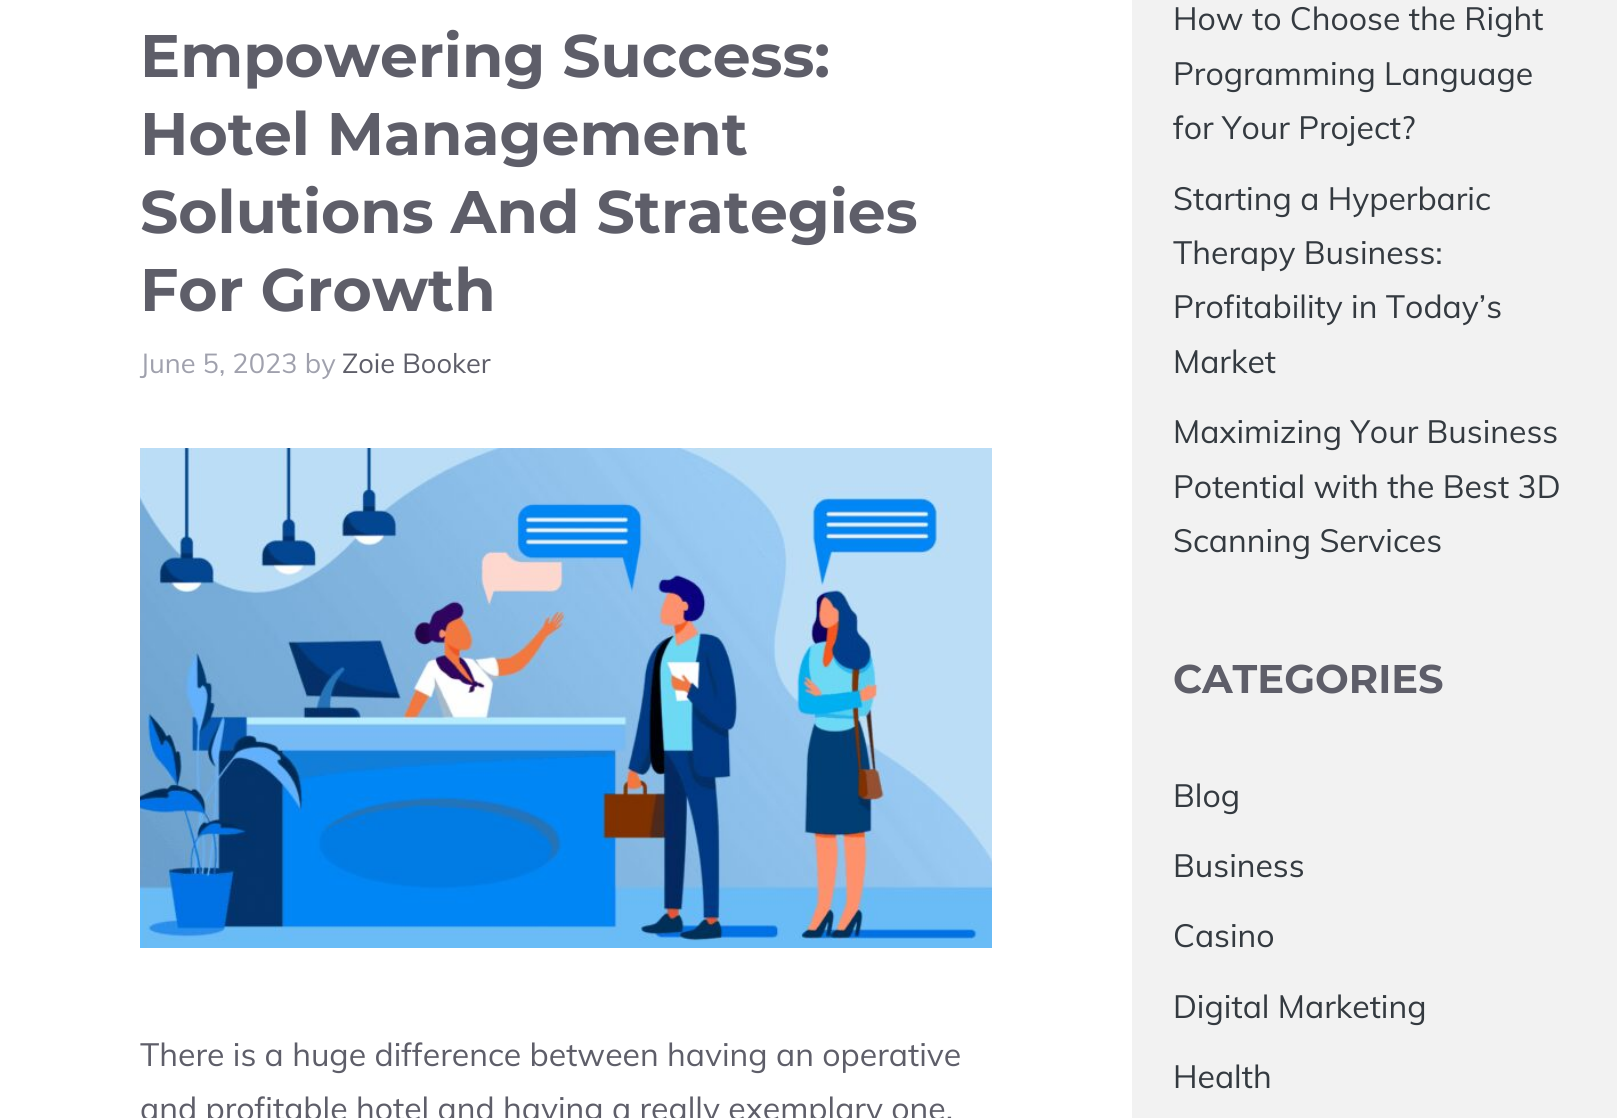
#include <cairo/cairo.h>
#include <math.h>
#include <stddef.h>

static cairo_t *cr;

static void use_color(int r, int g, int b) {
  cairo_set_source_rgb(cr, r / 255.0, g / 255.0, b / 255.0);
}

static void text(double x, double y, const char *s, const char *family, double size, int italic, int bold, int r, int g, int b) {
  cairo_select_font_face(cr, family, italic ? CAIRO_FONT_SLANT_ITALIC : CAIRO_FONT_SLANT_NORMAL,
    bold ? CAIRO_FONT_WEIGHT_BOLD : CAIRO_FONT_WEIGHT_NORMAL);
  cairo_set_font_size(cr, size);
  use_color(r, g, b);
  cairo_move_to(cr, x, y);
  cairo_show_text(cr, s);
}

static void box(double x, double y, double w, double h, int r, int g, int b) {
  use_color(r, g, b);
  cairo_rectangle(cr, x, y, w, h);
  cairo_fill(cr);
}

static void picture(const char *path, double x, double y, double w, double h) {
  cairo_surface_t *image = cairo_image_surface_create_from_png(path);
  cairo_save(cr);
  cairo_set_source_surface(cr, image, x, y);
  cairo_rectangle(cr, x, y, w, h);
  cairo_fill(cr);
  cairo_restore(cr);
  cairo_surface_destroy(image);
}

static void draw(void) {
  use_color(255, 255, 255);
  cairo_paint(cr);
  picture("img_01.png", 140, 448, 852, 500);
  box(1132, 0, 485, 1118, 242, 242, 242);
  text(140, 77, "Empowering Success:", "Montserrat", 60, 0, 1, 94, 94, 105);
  text(140, 155, "Hotel Management", "Montserrat", 60, 0, 1, 94, 94, 105);
  text(140, 233, "Solutions And Strategies", "Montserrat", 60, 0, 1, 94, 94, 105);
  text(140, 311, "For Growth", "Montserrat", 60, 0, 1, 94, 94, 105);
  text(140, 373, "June 5, 2023 by", "Muli", 27.25, 0, 0, 160, 161, 173);
  text(342, 373, "Zoie Booker", "Muli", 27.25, 0, 0, 94, 94, 105);
  text(140, 1066, "There is a huge difference between having an operative", "Muli", 32, 0, 0, 94, 94, 105);
  text(140, 1120, "and profitable hotel and having a really exemplary one,", "Muli", 32, 0, 0, 94, 94, 105);
  text(1173, 30, "How to Choose the Right", "Muli", 32, 0, 0, 52, 58, 64);
  text(1173, 85, "Programming Language", "Muli", 32, 0, 0, 52, 58, 64);
  text(1173, 139, "for Your Project?", "Muli", 32, 0, 0, 52, 58, 64);
  text(1173, 210, "Starting a Hyperbaric", "Muli", 32, 0, 0, 52, 58, 64);
  text(1173, 264, "Therapy Business:", "Muli", 32, 0, 0, 52, 58, 64);
  text(1173, 318, "Profitability in Today’s", "Muli", 32, 0, 0, 52, 58, 64);
  text(1173, 373, "Market", "Muli", 32, 0, 0, 52, 58, 64);
  text(1173, 443, "Maximizing Your Business", "Muli", 32, 0, 0, 52, 58, 64);
  text(1173, 498, "Potential with the Best 3D", "Muli", 32, 0, 0, 52, 58, 64);
  text(1173, 552, "Scanning Services", "Muli", 32, 0, 0, 52, 58, 64);
  text(1173, 693, "CATEGORIES", "Montserrat", 40, 0, 1, 94, 94, 105);
  text(1173, 807, "Blog", "Muli", 32, 0, 0, 52, 58, 64);
  text(1173, 877, "Business", "Muli", 32, 0, 0, 52, 58, 64);
  text(1173, 947, "Casino", "Muli", 32, 0, 0, 52, 58, 64);
  text(1173, 1018, "Digital Marketing", "Muli", 32, 0, 0, 52, 58, 64);
  text(1173, 1088, "Health", "Muli", 32, 0, 0, 52, 58, 64);
}

int main(void) {
  cairo_surface_t *surface = cairo_image_surface_create(CAIRO_FORMAT_RGB24, 1617, 1118);
  cr = cairo_create(surface);
  cairo_font_options_t *options = cairo_font_options_create();
  cairo_font_options_set_hint_metrics(options, CAIRO_HINT_METRICS_OFF);
  cairo_font_options_set_hint_style(options, CAIRO_HINT_STYLE_NONE);
  cairo_set_font_options(cr, options);
  cairo_set_miter_limit(cr, 4);
  draw();
  cairo_surface_write_to_png(surface, "out.png");
  cairo_font_options_destroy(options);
  cairo_destroy(cr);
  cairo_surface_destroy(surface);
  return 0;
}
